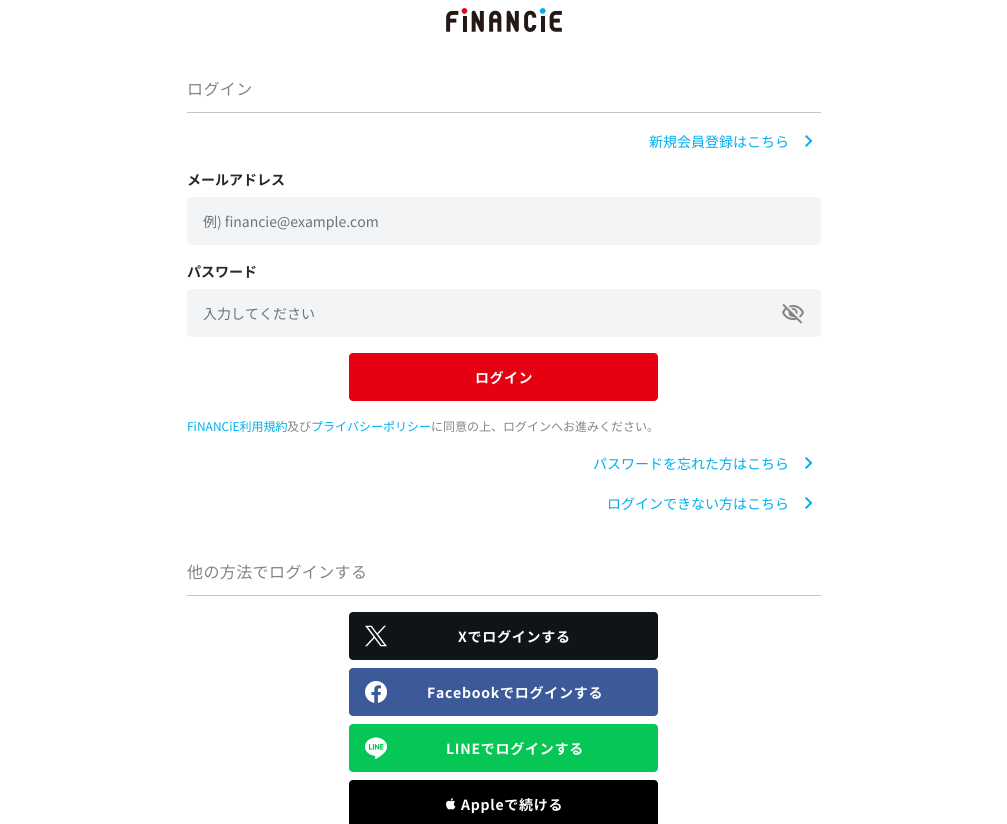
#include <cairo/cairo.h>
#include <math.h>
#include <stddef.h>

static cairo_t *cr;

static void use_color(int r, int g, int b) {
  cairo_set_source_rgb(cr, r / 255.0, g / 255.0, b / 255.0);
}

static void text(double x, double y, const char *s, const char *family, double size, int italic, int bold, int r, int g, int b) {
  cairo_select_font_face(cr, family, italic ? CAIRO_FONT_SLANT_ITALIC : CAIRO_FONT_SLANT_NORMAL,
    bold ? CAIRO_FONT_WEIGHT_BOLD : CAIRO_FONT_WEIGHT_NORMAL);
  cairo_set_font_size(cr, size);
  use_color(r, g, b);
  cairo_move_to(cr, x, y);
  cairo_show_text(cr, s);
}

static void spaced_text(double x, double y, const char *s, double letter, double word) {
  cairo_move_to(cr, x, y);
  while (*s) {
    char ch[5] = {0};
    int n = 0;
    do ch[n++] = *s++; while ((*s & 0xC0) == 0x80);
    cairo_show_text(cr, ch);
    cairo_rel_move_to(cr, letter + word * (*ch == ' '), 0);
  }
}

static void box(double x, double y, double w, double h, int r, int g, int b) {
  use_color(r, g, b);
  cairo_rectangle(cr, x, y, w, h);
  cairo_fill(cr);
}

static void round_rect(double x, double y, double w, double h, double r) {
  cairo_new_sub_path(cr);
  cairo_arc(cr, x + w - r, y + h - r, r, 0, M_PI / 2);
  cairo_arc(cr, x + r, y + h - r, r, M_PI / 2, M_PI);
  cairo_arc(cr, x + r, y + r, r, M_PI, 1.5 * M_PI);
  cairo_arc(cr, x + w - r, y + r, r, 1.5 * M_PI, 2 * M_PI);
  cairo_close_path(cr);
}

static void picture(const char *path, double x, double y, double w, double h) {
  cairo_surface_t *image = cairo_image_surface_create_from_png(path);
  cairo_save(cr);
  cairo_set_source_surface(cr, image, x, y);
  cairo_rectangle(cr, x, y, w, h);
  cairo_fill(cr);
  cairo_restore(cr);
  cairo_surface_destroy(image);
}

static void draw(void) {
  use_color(255, 255, 255);
  cairo_paint(cr);
  picture("img_01.png", 446, 8, 116, 24);
  box(187, 112, 634, 1, 196, 196, 196);
  picture("img_02.png", 805, 135, 8, 12);
  use_color(243, 244, 245);
  round_rect(187, 197, 634, 48, 4);
  cairo_fill(cr);
  round_rect(187, 289, 634, 48, 4);
  cairo_fill(cr);
  picture("img_03.png", 782, 303, 22, 21);
  use_color(229, 0, 18);
  round_rect(349, 353, 309, 48, 4);
  cairo_fill(cr);
  picture("img_02.png", 805, 457, 8, 12);
  picture("img_02.png", 805, 497, 8, 12);
  box(187, 595, 634, 1, 196, 196, 196);
  use_color(15, 20, 25);
  round_rect(349, 612, 309, 48, 4);
  cairo_fill(cr);
  picture("img_04.png", 365, 625, 22, 22);
  use_color(60, 90, 153);
  round_rect(349, 668, 309, 48, 4);
  cairo_fill(cr);
  picture("img_05.png", 365, 681, 22, 22);
  use_color(6, 199, 85);
  round_rect(349, 724, 309, 48, 4);
  cairo_fill(cr);
  picture("img_06.png", 365, 737, 22, 22);
  use_color(0, 0, 0);
  round_rect(349, 780, 309, 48, 4);
  cairo_fill(cr);
  picture("img_07.png", 446, 798, 10, 12);
  cairo_select_font_face(cr, "Noto Sans JP", CAIRO_FONT_SLANT_NORMAL, CAIRO_FONT_WEIGHT_NORMAL);
  cairo_set_font_size(cr, 16);
  use_color(132, 132, 132);
  spaced_text(187, 95, "ログイン", 0.4, 0);
  text(649, 147, "新規会員登録はこちら", "Noto Sans JP", 14, 0, 0, 0, 174, 235);
  text(187, 185, "メールアドレス", "Noto Sans JP", 14, 0, 1, 40, 40, 40);
  text(203, 227, "例) financie@example.com", "Noto Sans JP", 14, 0, 0, 107, 114, 128);
  text(187, 277, "パスワード", "Noto Sans JP", 14, 0, 1, 40, 40, 40);
  text(203, 319, "入力してください", "Noto Sans JP", 14, 0, 0, 107, 114, 128);
  cairo_select_font_face(cr, "Noto Sans JP", CAIRO_FONT_SLANT_NORMAL, CAIRO_FONT_WEIGHT_BOLD);
  use_color(255, 255, 255);
  spaced_text(475, 383, "ログイン", 0.5, 0);
  text(187, 431, "FiNANCiE利用規約", "Noto Sans JP", 12, 0, 0, 0, 174, 235);
  text(287, 431, "及び", "Noto Sans JP", 12, 0, 0, 132, 132, 132);
  text(311, 431, "プライバシーポリシー", "Noto Sans JP", 12, 0, 0, 0, 174, 235);
  text(431, 431, "に同意の上、ログインへお進みください。", "Noto Sans JP", 12, 0, 0, 132, 132, 132);
  text(593, 469, "パスワードを忘れた方はこちら", "Noto Sans JP", 14, 0, 0, 0, 174, 235);
  text(607, 509, "ログインできない方はこちら", "Noto Sans JP", 14, 0, 0, 0, 174, 235);
  cairo_set_font_size(cr, 16);
  use_color(132, 132, 132);
  spaced_text(187, 578, "他の方法でログインする", 0.4, 0);
  cairo_select_font_face(cr, "Noto Sans JP", CAIRO_FONT_SLANT_NORMAL, CAIRO_FONT_WEIGHT_BOLD);
  cairo_set_font_size(cr, 14);
  use_color(255, 255, 255);
  spaced_text(458, 642, "Xでログインする", 0.75, 0);
  spaced_text(427, 698, "Facebookでログインする", 0.75, 0);
  spaced_text(446, 754, "LINEでログインする", 0.75, 0);
  spaced_text(461, 810, "Appleで続ける", 0.75, 0);
}

int main(void) {
  cairo_surface_t *surface = cairo_image_surface_create(CAIRO_FORMAT_RGB24, 1007, 824);
  cr = cairo_create(surface);
  cairo_font_options_t *options = cairo_font_options_create();
  cairo_font_options_set_hint_metrics(options, CAIRO_HINT_METRICS_OFF);
  cairo_font_options_set_hint_style(options, CAIRO_HINT_STYLE_NONE);
  cairo_set_font_options(cr, options);
  cairo_set_miter_limit(cr, 4);
  draw();
  cairo_surface_write_to_png(surface, "out.png");
  cairo_font_options_destroy(options);
  cairo_destroy(cr);
  cairo_surface_destroy(surface);
  return 0;
}
